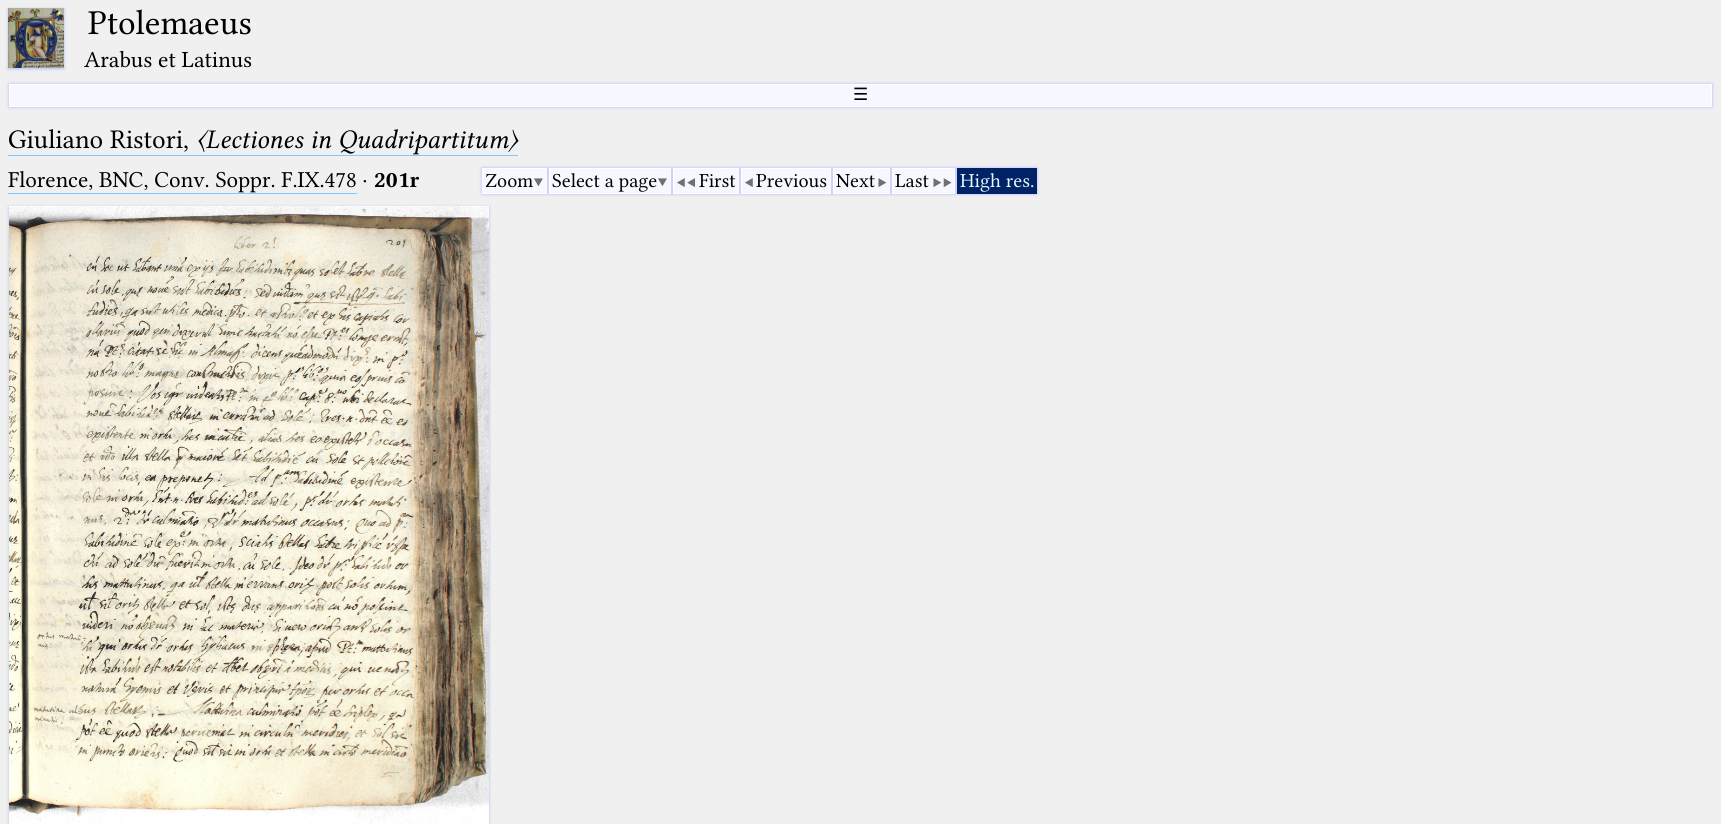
#include <cairo/cairo.h>
#include <math.h>
#include <stddef.h>

static cairo_t *cr;

static void use_color(int r, int g, int b) {
  cairo_set_source_rgb(cr, r / 255.0, g / 255.0, b / 255.0);
}

static void text(double x, double y, const char *s, const char *family, double size, int italic, int bold, int r, int g, int b) {
  cairo_select_font_face(cr, family, italic ? CAIRO_FONT_SLANT_ITALIC : CAIRO_FONT_SLANT_NORMAL,
    bold ? CAIRO_FONT_WEIGHT_BOLD : CAIRO_FONT_WEIGHT_NORMAL);
  cairo_set_font_size(cr, size);
  use_color(r, g, b);
  cairo_move_to(cr, x, y);
  cairo_show_text(cr, s);
}

static void box(double x, double y, double w, double h, int r, int g, int b) {
  use_color(r, g, b);
  cairo_rectangle(cr, x, y, w, h);
  cairo_fill(cr);
}

static void round_rect(double x, double y, double w, double h, double r) {
  cairo_new_sub_path(cr);
  cairo_arc(cr, x + w - r, y + h - r, r, 0, M_PI / 2);
  cairo_arc(cr, x + r, y + h - r, r, M_PI / 2, M_PI);
  cairo_arc(cr, x + r, y + r, r, M_PI, 1.5 * M_PI);
  cairo_arc(cr, x + w - r, y + r, r, 1.5 * M_PI, 2 * M_PI);
  cairo_close_path(cr);
}

static void shadow(double x, double y, double w, double h, double r, double blur, double alpha) {
  cairo_push_group_with_content(cr, CAIRO_CONTENT_ALPHA);
  cairo_set_operator(cr, CAIRO_OPERATOR_SOURCE);
  for (int i = 15; i >= -15 && fmin(w, h) + blur * i / 3 > 0; i -= 2) {
    double e = blur * i / 6;
    cairo_set_source_rgba(cr, 0, 0, 0, alpha * erfc((i - 1) / 8.5) / 2);
    round_rect(x - e, y - e, w + 2 * e, h + 2 * e, fmax(0, fmin(r + e + blur * .6, fmin(w, h) / 2 + e)));
    cairo_fill(cr);
  }
  cairo_pattern_t *soft = cairo_pop_group(cr);
  cairo_mask(cr, soft);
  cairo_pattern_destroy(soft);
}

static void picture(const char *path, double x, double y, double w, double h) {
  cairo_surface_t *image = cairo_image_surface_create_from_png(path);
  cairo_save(cr);
  cairo_set_source_surface(cr, image, x, y);
  cairo_rectangle(cr, x, y, w, h);
  cairo_fill(cr);
  cairo_restore(cr);
  cairo_surface_destroy(image);
}

static void draw(void) {
  use_color(240, 240, 240);
  cairo_paint(cr);
  use_color(176, 192, 244);
  shadow(8, 9, 56, 60, 0, 1.5, 1);
  picture("img_01.png", 8, 8, 56, 60);
  use_color(170, 175, 255);
  shadow(9, 84, 1703, 23, 0, 1.5, 1);
  use_color(247, 248, 255);
  cairo_rectangle(cr, 9.5, 84.5, 1702, 22);
  cairo_fill_preserve(cr);
  use_color(255, 255, 255);
  cairo_set_line_width(cr, 1);
  cairo_stroke(cr);
  box(8, 155, 510, 1, 128, 200, 255);
  box(8, 193, 349, 1, 128, 200, 255);
  use_color(170, 175, 255);
  shadow(482, 168, 65, 26, 0, 1.5, 1);
  use_color(247, 248, 255);
  cairo_rectangle(cr, 482.5, 168.5, 64, 25);
  cairo_fill_preserve(cr);
  use_color(255, 255, 255);
  cairo_stroke(cr);
  use_color(170, 175, 255);
  shadow(549, 168, 122, 26, 0, 1.5, 1);
  use_color(247, 248, 255);
  cairo_rectangle(cr, 549.5, 168.5, 121, 25);
  cairo_fill_preserve(cr);
  use_color(255, 255, 255);
  cairo_stroke(cr);
  use_color(170, 175, 255);
  shadow(673, 168, 66, 26, 0, 1.5, 1);
  use_color(247, 248, 255);
  cairo_rectangle(cr, 673.5, 168.5, 65, 25);
  cairo_fill_preserve(cr);
  use_color(255, 255, 255);
  cairo_stroke(cr);
  use_color(170, 175, 255);
  shadow(741, 168, 90, 26, 0, 1.5, 1);
  use_color(247, 248, 255);
  cairo_rectangle(cr, 741.5, 168.5, 89, 25);
  cairo_fill_preserve(cr);
  use_color(255, 255, 255);
  cairo_stroke(cr);
  use_color(170, 175, 255);
  shadow(833, 168, 57, 26, 0, 1.5, 1);
  use_color(247, 248, 255);
  cairo_rectangle(cr, 833.5, 168.5, 56, 25);
  cairo_fill_preserve(cr);
  use_color(255, 255, 255);
  cairo_stroke(cr);
  use_color(170, 175, 255);
  shadow(892, 168, 63, 26, 0, 1.5, 1);
  use_color(247, 248, 255);
  cairo_rectangle(cr, 892.5, 168.5, 62, 25);
  cairo_fill_preserve(cr);
  use_color(255, 255, 255);
  cairo_stroke(cr);
  use_color(170, 175, 255);
  shadow(957, 168, 80, 26, 0, 1.5, 1);
  box(957, 168, 80, 26, 0, 34, 102);
  use_color(176, 192, 244);
  shadow(9, 207, 480, 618, 0, 1.5, 1);
  picture("img_02.png", 9, 206, 480, 618);
  text(88, 34, "Ptolemaeus", "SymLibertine", 35, 0, 0, 0, 0, 0);
  text(84, 67, "Arabus et Latinus", "SymLibertine", 23.25, 0, 0, 0, 0, 0);
  text(853, 100, "☰", "DejaVu Sans", 17, 0, 0, 0, 0, 0);
  text(8, 148, "Giuliano Ristori,", "SymLibertine", 27, 0, 0, 0, 0, 0);
  text(196, 148, "〈Lectiones in Quadripartitum〉", "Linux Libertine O", 27, 1, 0, 0, 0, 0);
  text(8, 187, "Florence, BNC, Conv. Soppr. F.IX.478", "SymLibertine", 23, 0, 0, 0, 0, 0);
  text(362, 187, "·", "SymLibertine", 23, 0, 0, 0, 0, 0);
  text(374, 187, "201r", "Linux Libertine O", 23, 0, 1, 0, 0, 0);
  text(485, 187, "Zoom", "SymLibertine", 20, 0, 0, 0, 0, 0);
  text(533, 187, "▼", "SymLibertine", 20, 0, 0, 112, 112, 112);
  text(552, 187, "Select a page", "SymLibertine", 20, 0, 0, 0, 0, 0);
  text(657, 187, "▼", "SymLibertine", 20, 0, 0, 112, 112, 112);
  text(676, 187, "◀◀", "SymLibertine", 20, 0, 0, 112, 112, 112);
  text(699, 187, "First", "SymLibertine", 20, 0, 0, 0, 0, 0);
  text(744, 187, "◀", "SymLibertine", 20, 0, 0, 112, 112, 112);
  text(756, 187, "Previous", "SymLibertine", 20, 0, 0, 0, 0, 0);
  text(836, 187, "Next", "SymLibertine", 20, 0, 0, 0, 0, 0);
  text(877, 187, "▶", "SymLibertine", 20, 0, 0, 112, 112, 112);
  text(895, 187, "Last", "SymLibertine", 20, 0, 0, 0, 0, 0);
  text(932, 187, "▶▶", "SymLibertine", 20, 0, 0, 112, 112, 112);
  text(960, 187, "High res.", "SymLibertine", 20, 0, 0, 232, 248, 255);
}

int main(void) {
  cairo_surface_t *surface = cairo_image_surface_create(CAIRO_FORMAT_RGB24, 1721, 824);
  cr = cairo_create(surface);
  cairo_font_options_t *options = cairo_font_options_create();
  cairo_font_options_set_hint_metrics(options, CAIRO_HINT_METRICS_OFF);
  cairo_font_options_set_hint_style(options, CAIRO_HINT_STYLE_NONE);
  cairo_set_font_options(cr, options);
  cairo_set_miter_limit(cr, 4);
  draw();
  cairo_surface_write_to_png(surface, "out.png");
  cairo_font_options_destroy(options);
  cairo_destroy(cr);
  cairo_surface_destroy(surface);
  return 0;
}
